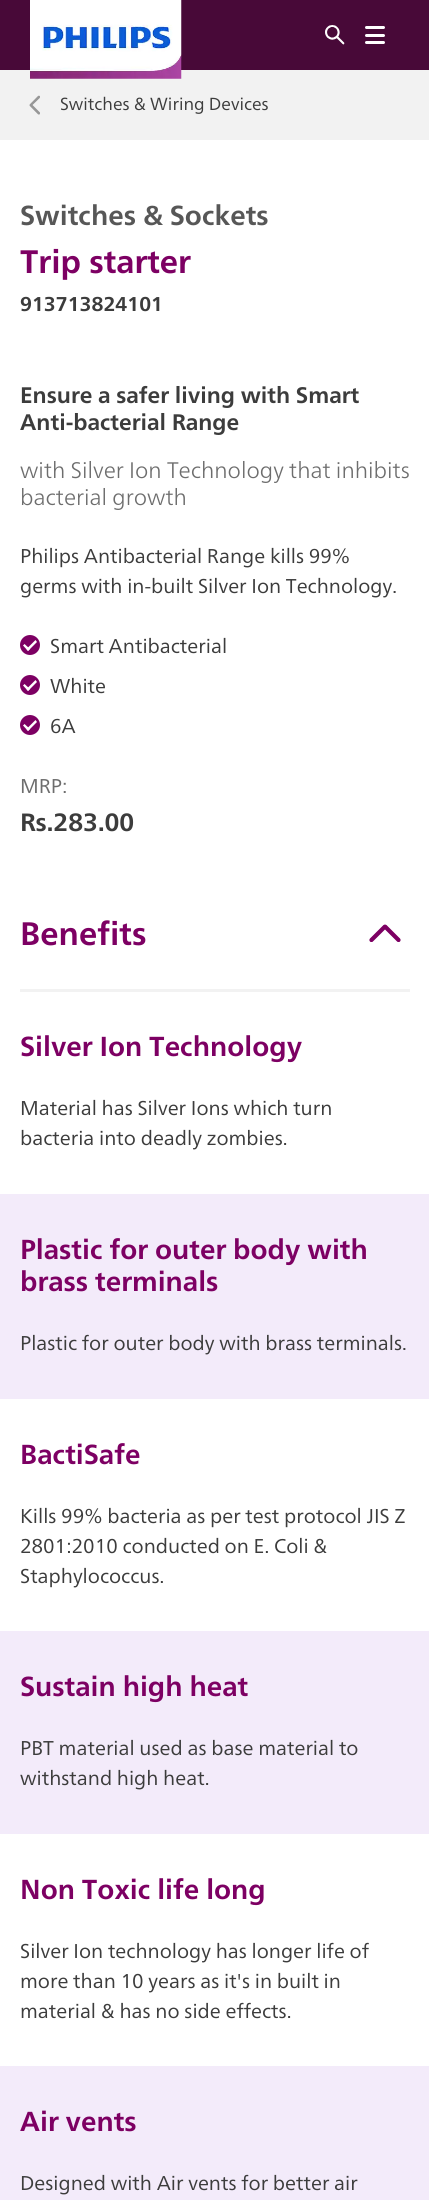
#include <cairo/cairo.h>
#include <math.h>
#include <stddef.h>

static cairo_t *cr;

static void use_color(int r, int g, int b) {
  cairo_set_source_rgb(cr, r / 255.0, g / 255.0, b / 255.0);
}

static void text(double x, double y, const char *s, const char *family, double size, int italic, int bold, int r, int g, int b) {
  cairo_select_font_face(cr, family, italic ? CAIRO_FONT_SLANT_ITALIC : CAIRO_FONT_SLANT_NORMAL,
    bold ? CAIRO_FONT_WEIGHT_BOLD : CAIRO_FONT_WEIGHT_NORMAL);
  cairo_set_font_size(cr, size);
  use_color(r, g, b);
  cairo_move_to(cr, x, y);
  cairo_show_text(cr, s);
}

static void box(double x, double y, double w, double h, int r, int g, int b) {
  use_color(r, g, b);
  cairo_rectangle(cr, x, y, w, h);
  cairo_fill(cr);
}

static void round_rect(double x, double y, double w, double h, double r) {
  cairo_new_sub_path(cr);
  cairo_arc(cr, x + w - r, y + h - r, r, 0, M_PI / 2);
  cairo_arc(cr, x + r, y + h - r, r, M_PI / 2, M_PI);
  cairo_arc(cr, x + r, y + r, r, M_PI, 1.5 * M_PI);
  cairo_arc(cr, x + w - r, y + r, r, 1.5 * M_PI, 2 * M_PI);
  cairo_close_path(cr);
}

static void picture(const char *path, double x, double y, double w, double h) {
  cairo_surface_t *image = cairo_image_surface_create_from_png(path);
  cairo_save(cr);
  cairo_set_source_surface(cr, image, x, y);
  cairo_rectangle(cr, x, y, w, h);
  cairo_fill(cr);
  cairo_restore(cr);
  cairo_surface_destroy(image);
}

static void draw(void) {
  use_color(255, 255, 255);
  cairo_paint(cr);
  box(0, 0, 429, 70, 72, 9, 56);
  box(0, 70, 429, 70, 242, 242, 242);
  picture("img_01.png", 30, 0, 152, 79);
  picture("img_02.png", 325, 25, 20, 20);
  use_color(255, 255, 255);
  round_rect(365, 26, 20, 3, 1.5);
  cairo_fill(cr);
  round_rect(365, 34, 20, 3, 1.5);
  cairo_fill(cr);
  round_rect(365, 41, 20, 3, 1.5);
  cairo_fill(cr);
  picture("img_03.png", 29, 95, 11, 20);
  use_color(125, 0, 99);
  cairo_arc(cr, 30, 645, 10, 0, 2 * M_PI);
  cairo_fill(cr);
  use_color(255, 255, 255);
  cairo_new_path(cr);
  cairo_move_to(cr, 35.5, 640);
  cairo_line_to(cr, 37, 642);
  cairo_line_to(cr, 28, 651);
  cairo_line_to(cr, 26.5, 649);
  cairo_close_path(cr);
  cairo_fill(cr);
  cairo_new_path(cr);
  cairo_move_to(cr, 24.5, 644);
  cairo_line_to(cr, 30, 649);
  cairo_line_to(cr, 28, 651);
  cairo_line_to(cr, 23, 645.5);
  cairo_close_path(cr);
  cairo_fill(cr);
  use_color(125, 0, 99);
  cairo_arc(cr, 30, 685, 10, 0, 2 * M_PI);
  cairo_fill(cr);
  use_color(255, 255, 255);
  cairo_new_path(cr);
  cairo_move_to(cr, 35.5, 680);
  cairo_line_to(cr, 37, 682);
  cairo_line_to(cr, 28, 691);
  cairo_line_to(cr, 26.5, 689);
  cairo_close_path(cr);
  cairo_fill(cr);
  cairo_new_path(cr);
  cairo_move_to(cr, 24.5, 684);
  cairo_line_to(cr, 30, 689);
  cairo_line_to(cr, 28, 691);
  cairo_line_to(cr, 23, 685.5);
  cairo_close_path(cr);
  cairo_fill(cr);
  use_color(125, 0, 99);
  cairo_arc(cr, 30, 725, 10, 0, 2 * M_PI);
  cairo_fill(cr);
  use_color(255, 255, 255);
  cairo_new_path(cr);
  cairo_move_to(cr, 35.5, 720);
  cairo_line_to(cr, 37, 722);
  cairo_line_to(cr, 28, 731);
  cairo_line_to(cr, 26.5, 729);
  cairo_close_path(cr);
  cairo_fill(cr);
  cairo_new_path(cr);
  cairo_move_to(cr, 24.5, 724);
  cairo_line_to(cr, 30, 729);
  cairo_line_to(cr, 28, 731);
  cairo_line_to(cr, 23, 725.5);
  cairo_close_path(cr);
  cairo_fill(cr);
  box(20, 989, 390, 3, 242, 242, 242);
  picture("img_04.png", 369, 924, 32, 18);
  box(0, 1194, 429, 205, 243, 235, 250);
  box(0, 1631, 429, 203, 243, 235, 250);
  box(0, 2066, 429, 134, 243, 235, 250);
  text(60, 110, "Switches & Wiring Devices", "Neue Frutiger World", 17.5, 0, 0, 60, 60, 60);
  text(20, 225, "Switches & Sockets", "Neue Frutiger World", 27.5, 0, 1, 87, 87, 87);
  text(20, 273, "Trip starter", "Neue Frutiger World", 32.5, 0, 1, 125, 0, 99);
  text(20, 311, "913713824101", "Neue Frutiger World", 20, 0, 1, 60, 60, 60);
  text(20, 403, "Ensure a safer living with Smart", "Neue Frutiger World", 22.5, 0, 1, 60, 60, 60);
  text(20, 430, "Anti-bacterial Range", "Neue Frutiger World", 22.5, 0, 1, 60, 60, 60);
  text(20, 478, "with Silver Ion Technology that inhibits", "Neue Frutiger World Light", 22.5, 0, 0, 109, 109, 109);
  text(20, 505, "bacterial growth", "Neue Frutiger World Light", 22.5, 0, 0, 109, 109, 109);
  text(20, 563, "Philips Antibacterial Range kills 99%", "Neue Frutiger World", 20, 0, 0, 60, 60, 60);
  text(20, 593, "germs with in-built Silver Ion Technology.", "Neue Frutiger World", 20, 0, 0, 60, 60, 60);
  text(50, 653, "Smart Antibacterial", "Neue Frutiger World", 20, 0, 0, 60, 60, 60);
  text(50, 693, "White", "Neue Frutiger World", 20, 0, 0, 60, 60, 60);
  text(50, 733, "6A", "Neue Frutiger World", 20, 0, 0, 60, 60, 60);
  text(20, 793, "MRP:", "Neue Frutiger World", 20, 0, 0, 109, 109, 109);
  text(20, 831, "Rs.283.00", "Neue Frutiger World", 25, 0, 1, 60, 60, 60);
  text(20, 945, "Benefits", "Neue Frutiger World", 32.5, 0, 1, 125, 0, 99);
  text(20, 1056, "Silver Ion Technology", "Neue Frutiger World", 27.5, 0, 1, 125, 0, 99);
  text(20, 1115, "Material has Silver Ions which turn", "Neue Frutiger World", 20, 0, 0, 60, 60, 60);
  text(20, 1145, "bacteria into deadly zombies.", "Neue Frutiger World", 20, 0, 0, 60, 60, 60);
  text(20, 1259, "Plastic for outer body with", "Neue Frutiger World", 27.5, 0, 1, 125, 0, 99);
  text(20, 1291, "brass terminals", "Neue Frutiger World", 27.5, 0, 1, 125, 0, 99);
  text(20, 1350, "Plastic for outer body with brass terminals.", "Neue Frutiger World", 20, 0, 0, 60, 60, 60);
  text(20, 1464, "BactiSafe", "Neue Frutiger World", 27.5, 0, 1, 125, 0, 99);
  text(20, 1523, "Kills 99% bacteria as per test protocol JIS Z", "Neue Frutiger World", 20, 0, 0, 60, 60, 60);
  text(20, 1553, "2801:2010 conducted on E. Coli &", "Neue Frutiger World", 20, 0, 0, 60, 60, 60);
  text(20, 1583, "Staphylococcus.", "Neue Frutiger World", 20, 0, 0, 60, 60, 60);
  text(20, 1696, "Sustain high heat", "Neue Frutiger World", 27.5, 0, 1, 125, 0, 99);
  text(20, 1755, "PBT material used as base material to", "Neue Frutiger World", 20, 0, 0, 60, 60, 60);
  text(20, 1785, "withstand high heat.", "Neue Frutiger World", 20, 0, 0, 60, 60, 60);
  text(20, 1899, "Non Toxic life long", "Neue Frutiger World", 27.5, 0, 1, 125, 0, 99);
  text(20, 1958, "Silver Ion technology has longer life of", "Neue Frutiger World", 20, 0, 0, 60, 60, 60);
  text(20, 1988, "more than 10 years as it's in built in", "Neue Frutiger World", 20, 0, 0, 60, 60, 60);
  text(20, 2018, "material & has no side effects.", "Neue Frutiger World", 20, 0, 0, 60, 60, 60);
  text(20, 2131, "Air vents", "Neue Frutiger World", 27.5, 0, 1, 125, 0, 99);
  text(20, 2190, "Designed with Air vents for better air", "Neue Frutiger World", 20, 0, 0, 60, 60, 60);
}

int main(void) {
  cairo_surface_t *surface = cairo_image_surface_create(CAIRO_FORMAT_RGB24, 429, 2200);
  cr = cairo_create(surface);
  cairo_font_options_t *options = cairo_font_options_create();
  cairo_font_options_set_hint_metrics(options, CAIRO_HINT_METRICS_OFF);
  cairo_font_options_set_hint_style(options, CAIRO_HINT_STYLE_NONE);
  cairo_set_font_options(cr, options);
  cairo_set_miter_limit(cr, 4);
  draw();
  cairo_surface_write_to_png(surface, "out.png");
  cairo_font_options_destroy(options);
  cairo_destroy(cr);
  cairo_surface_destroy(surface);
  return 0;
}
